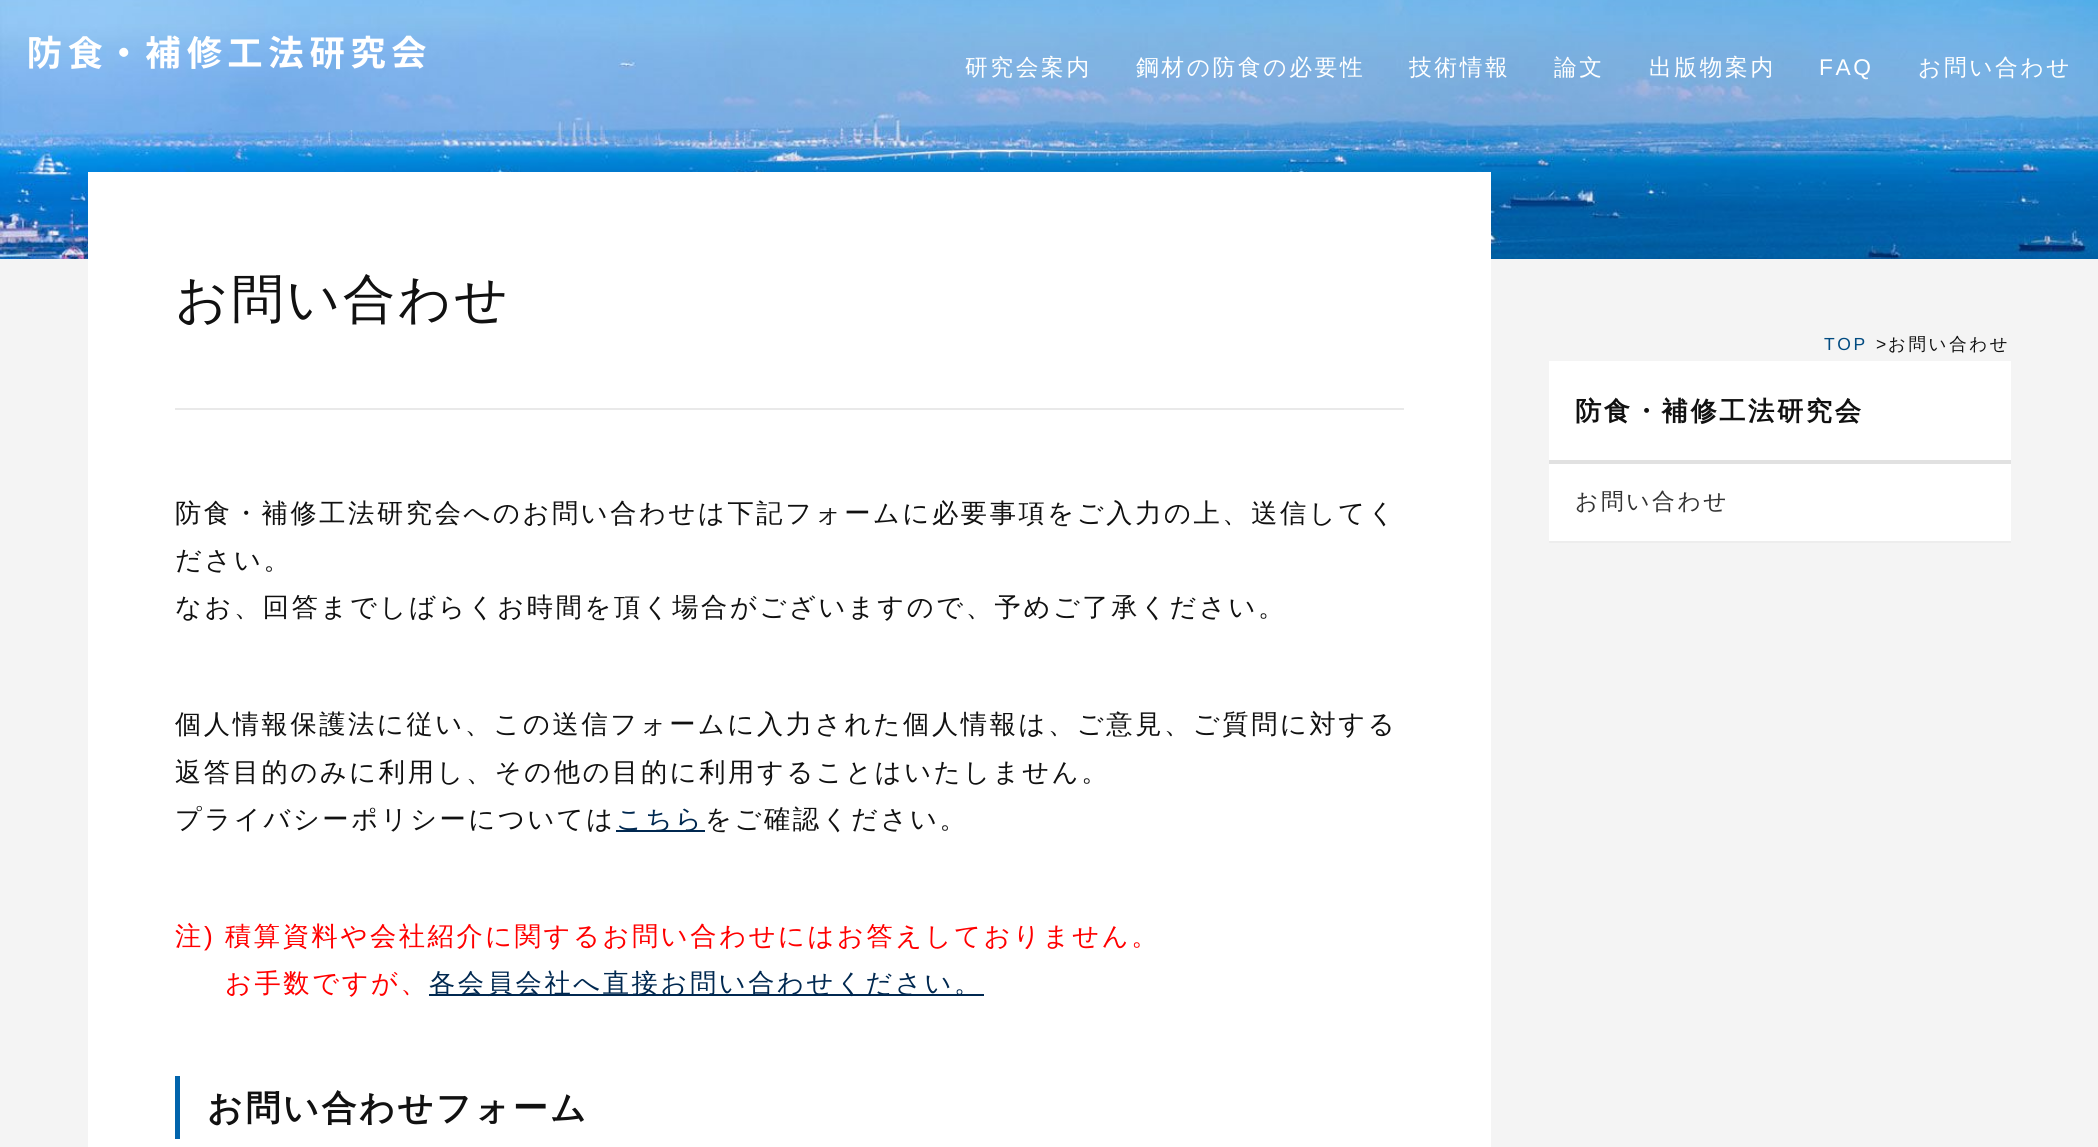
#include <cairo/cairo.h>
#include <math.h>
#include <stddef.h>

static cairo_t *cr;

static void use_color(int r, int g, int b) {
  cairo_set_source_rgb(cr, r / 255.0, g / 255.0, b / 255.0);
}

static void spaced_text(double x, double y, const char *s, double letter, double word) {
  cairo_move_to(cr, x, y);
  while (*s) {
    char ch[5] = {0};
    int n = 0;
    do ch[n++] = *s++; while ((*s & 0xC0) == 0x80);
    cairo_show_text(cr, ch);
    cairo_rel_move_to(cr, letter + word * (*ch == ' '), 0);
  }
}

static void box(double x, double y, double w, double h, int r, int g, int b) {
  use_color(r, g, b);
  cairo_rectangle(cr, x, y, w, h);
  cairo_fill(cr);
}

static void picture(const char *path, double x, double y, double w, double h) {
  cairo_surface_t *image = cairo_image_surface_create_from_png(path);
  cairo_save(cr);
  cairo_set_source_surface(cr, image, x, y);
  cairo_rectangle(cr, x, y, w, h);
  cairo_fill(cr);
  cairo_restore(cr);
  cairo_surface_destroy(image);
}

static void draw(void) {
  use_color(244, 244, 244);
  cairo_paint(cr);
  picture("img_01.png", 0, 0, 2098, 259);
  picture("img_02.png", 29, 35, 397, 35);
  box(88, 172, 1403, 975, 255, 255, 255);
  box(175, 408, 1229, 2, 233, 233, 233);
  box(616, 830, 89, 2, 0, 40, 80);
  box(429, 994, 555, 2, 0, 40, 80);
  box(175, 1076, 5, 63, 1, 100, 172);
  box(1549, 361, 462, 180, 255, 255, 255);
  box(1549, 460, 462, 4, 225, 225, 225);
  box(1549, 541, 462, 2, 237, 237, 237);
  cairo_select_font_face(cr, "WenQuanYi Zen Hei Medium", CAIRO_FONT_SLANT_NORMAL, CAIRO_FONT_WEIGHT_NORMAL);
  cairo_set_font_size(cr, 22.75);
  use_color(255, 255, 255);
  spaced_text(965, 75, "研究会案内", 2.6, 0);
  spaced_text(1136, 75, "鋼材の防食の必要性", 2.6, 0);
  spaced_text(1409, 75, "技術情報", 2.6, 0);
  spaced_text(1554, 75, "論文", 2.6, 0);
  spaced_text(1649, 75, "出版物案内", 2.6, 0);
  cairo_select_font_face(cr, "Liberation Sans", CAIRO_FONT_SLANT_NORMAL, CAIRO_FONT_WEIGHT_NORMAL);
  spaced_text(1819, 75, "FAQ", 2.6, 0);
  cairo_select_font_face(cr, "WenQuanYi Zen Hei Medium", CAIRO_FONT_SLANT_NORMAL, CAIRO_FONT_WEIGHT_NORMAL);
  spaced_text(1918, 75, "お問い合わせ", 2.6, 0);
  cairo_set_font_size(cr, 52.5);
  use_color(17, 17, 17);
  spaced_text(175, 317, "お問い合わせ", 2.6, 0);
  cairo_set_font_size(cr, 26.25);
  spaced_text(175, 522, "防食・補修工法研究会へのお問い合わせは下記フォームに必要事項をご入力の上、送信してく", 2.6, 0);
  spaced_text(175, 569, "ださい。", 2.6, 0);
  spaced_text(175, 616, "なお、回答までしばらくお時間を頂く場合がございますので、予めご了承ください。", 2.6, 0);
  spaced_text(175, 733, "個人情報保護法に従い、この送信フォームに入力された個人情報は、ご意見、ご質問に対する", 2.6, 0);
  spaced_text(175, 781, "返答目的のみに利用し、その他の目的に利用することはいたしません。", 2.6, 0);
  spaced_text(175, 828, "プライバシーポリシーについては", 2.6, 0);
  use_color(0, 40, 80);
  spaced_text(616, 828, "こちら", 2.6, 0);
  use_color(17, 17, 17);
  spaced_text(705, 828, "をご確認ください。", 2.6, 0);
  use_color(255, 0, 0);
  spaced_text(175, 945, "注", 2.6, 0);
  cairo_select_font_face(cr, "Liberation Sans", CAIRO_FONT_SLANT_NORMAL, CAIRO_FONT_WEIGHT_NORMAL);
  spaced_text(204, 945, ")", 2.6, 0);
  cairo_select_font_face(cr, "WenQuanYi Zen Hei Medium", CAIRO_FONT_SLANT_NORMAL, CAIRO_FONT_WEIGHT_NORMAL);
  spaced_text(225, 945, "積算資料や会社紹介に関するお問い合わせにはお答えしておりません。", 2.6, 0);
  spaced_text(225, 992, "お手数ですが、", 2.6, 0);
  use_color(0, 40, 80);
  spaced_text(429, 992, "各会員会社へ直接お問い合わせください。", 2.6, 0);
  cairo_select_font_face(cr, "WenQuanYi Zen Hei", CAIRO_FONT_SLANT_NORMAL, CAIRO_FONT_WEIGHT_BOLD);
  cairo_set_font_size(cr, 35);
  use_color(17, 17, 17);
  spaced_text(207, 1120, "お問い合わせフォーム", 2.6, 0);
  cairo_select_font_face(cr, "Liberation Sans", CAIRO_FONT_SLANT_NORMAL, CAIRO_FONT_WEIGHT_NORMAL);
  cairo_set_font_size(cr, 17.5);
  use_color(1, 75, 129);
  spaced_text(1824, 350, "TOP", 2.6, 0);
  use_color(17, 17, 17);
  spaced_text(1876, 350, ">", 2.6, 0);
  cairo_select_font_face(cr, "WenQuanYi Zen Hei Medium", CAIRO_FONT_SLANT_NORMAL, CAIRO_FONT_WEIGHT_NORMAL);
  spaced_text(1888, 350, "お問い合わせ", 2.6, 0);
  cairo_select_font_face(cr, "WenQuanYi Zen Hei", CAIRO_FONT_SLANT_NORMAL, CAIRO_FONT_WEIGHT_BOLD);
  cairo_set_font_size(cr, 26.25);
  spaced_text(1575, 420, "防食・補修工法研究会", 2.6, 0);
  cairo_select_font_face(cr, "WenQuanYi Zen Hei Medium", CAIRO_FONT_SLANT_NORMAL, CAIRO_FONT_WEIGHT_NORMAL);
  cairo_set_font_size(cr, 22.75);
  use_color(51, 51, 51);
  spaced_text(1575, 509, "お問い合わせ", 2.6, 0);
}

int main(void) {
  cairo_surface_t *surface = cairo_image_surface_create(CAIRO_FORMAT_RGB24, 2098, 1147);
  cr = cairo_create(surface);
  cairo_font_options_t *options = cairo_font_options_create();
  cairo_font_options_set_hint_metrics(options, CAIRO_HINT_METRICS_OFF);
  cairo_font_options_set_hint_style(options, CAIRO_HINT_STYLE_NONE);
  cairo_set_font_options(cr, options);
  cairo_set_miter_limit(cr, 4);
  draw();
  cairo_surface_write_to_png(surface, "out.png");
  cairo_font_options_destroy(options);
  cairo_destroy(cr);
  cairo_surface_destroy(surface);
  return 0;
}
